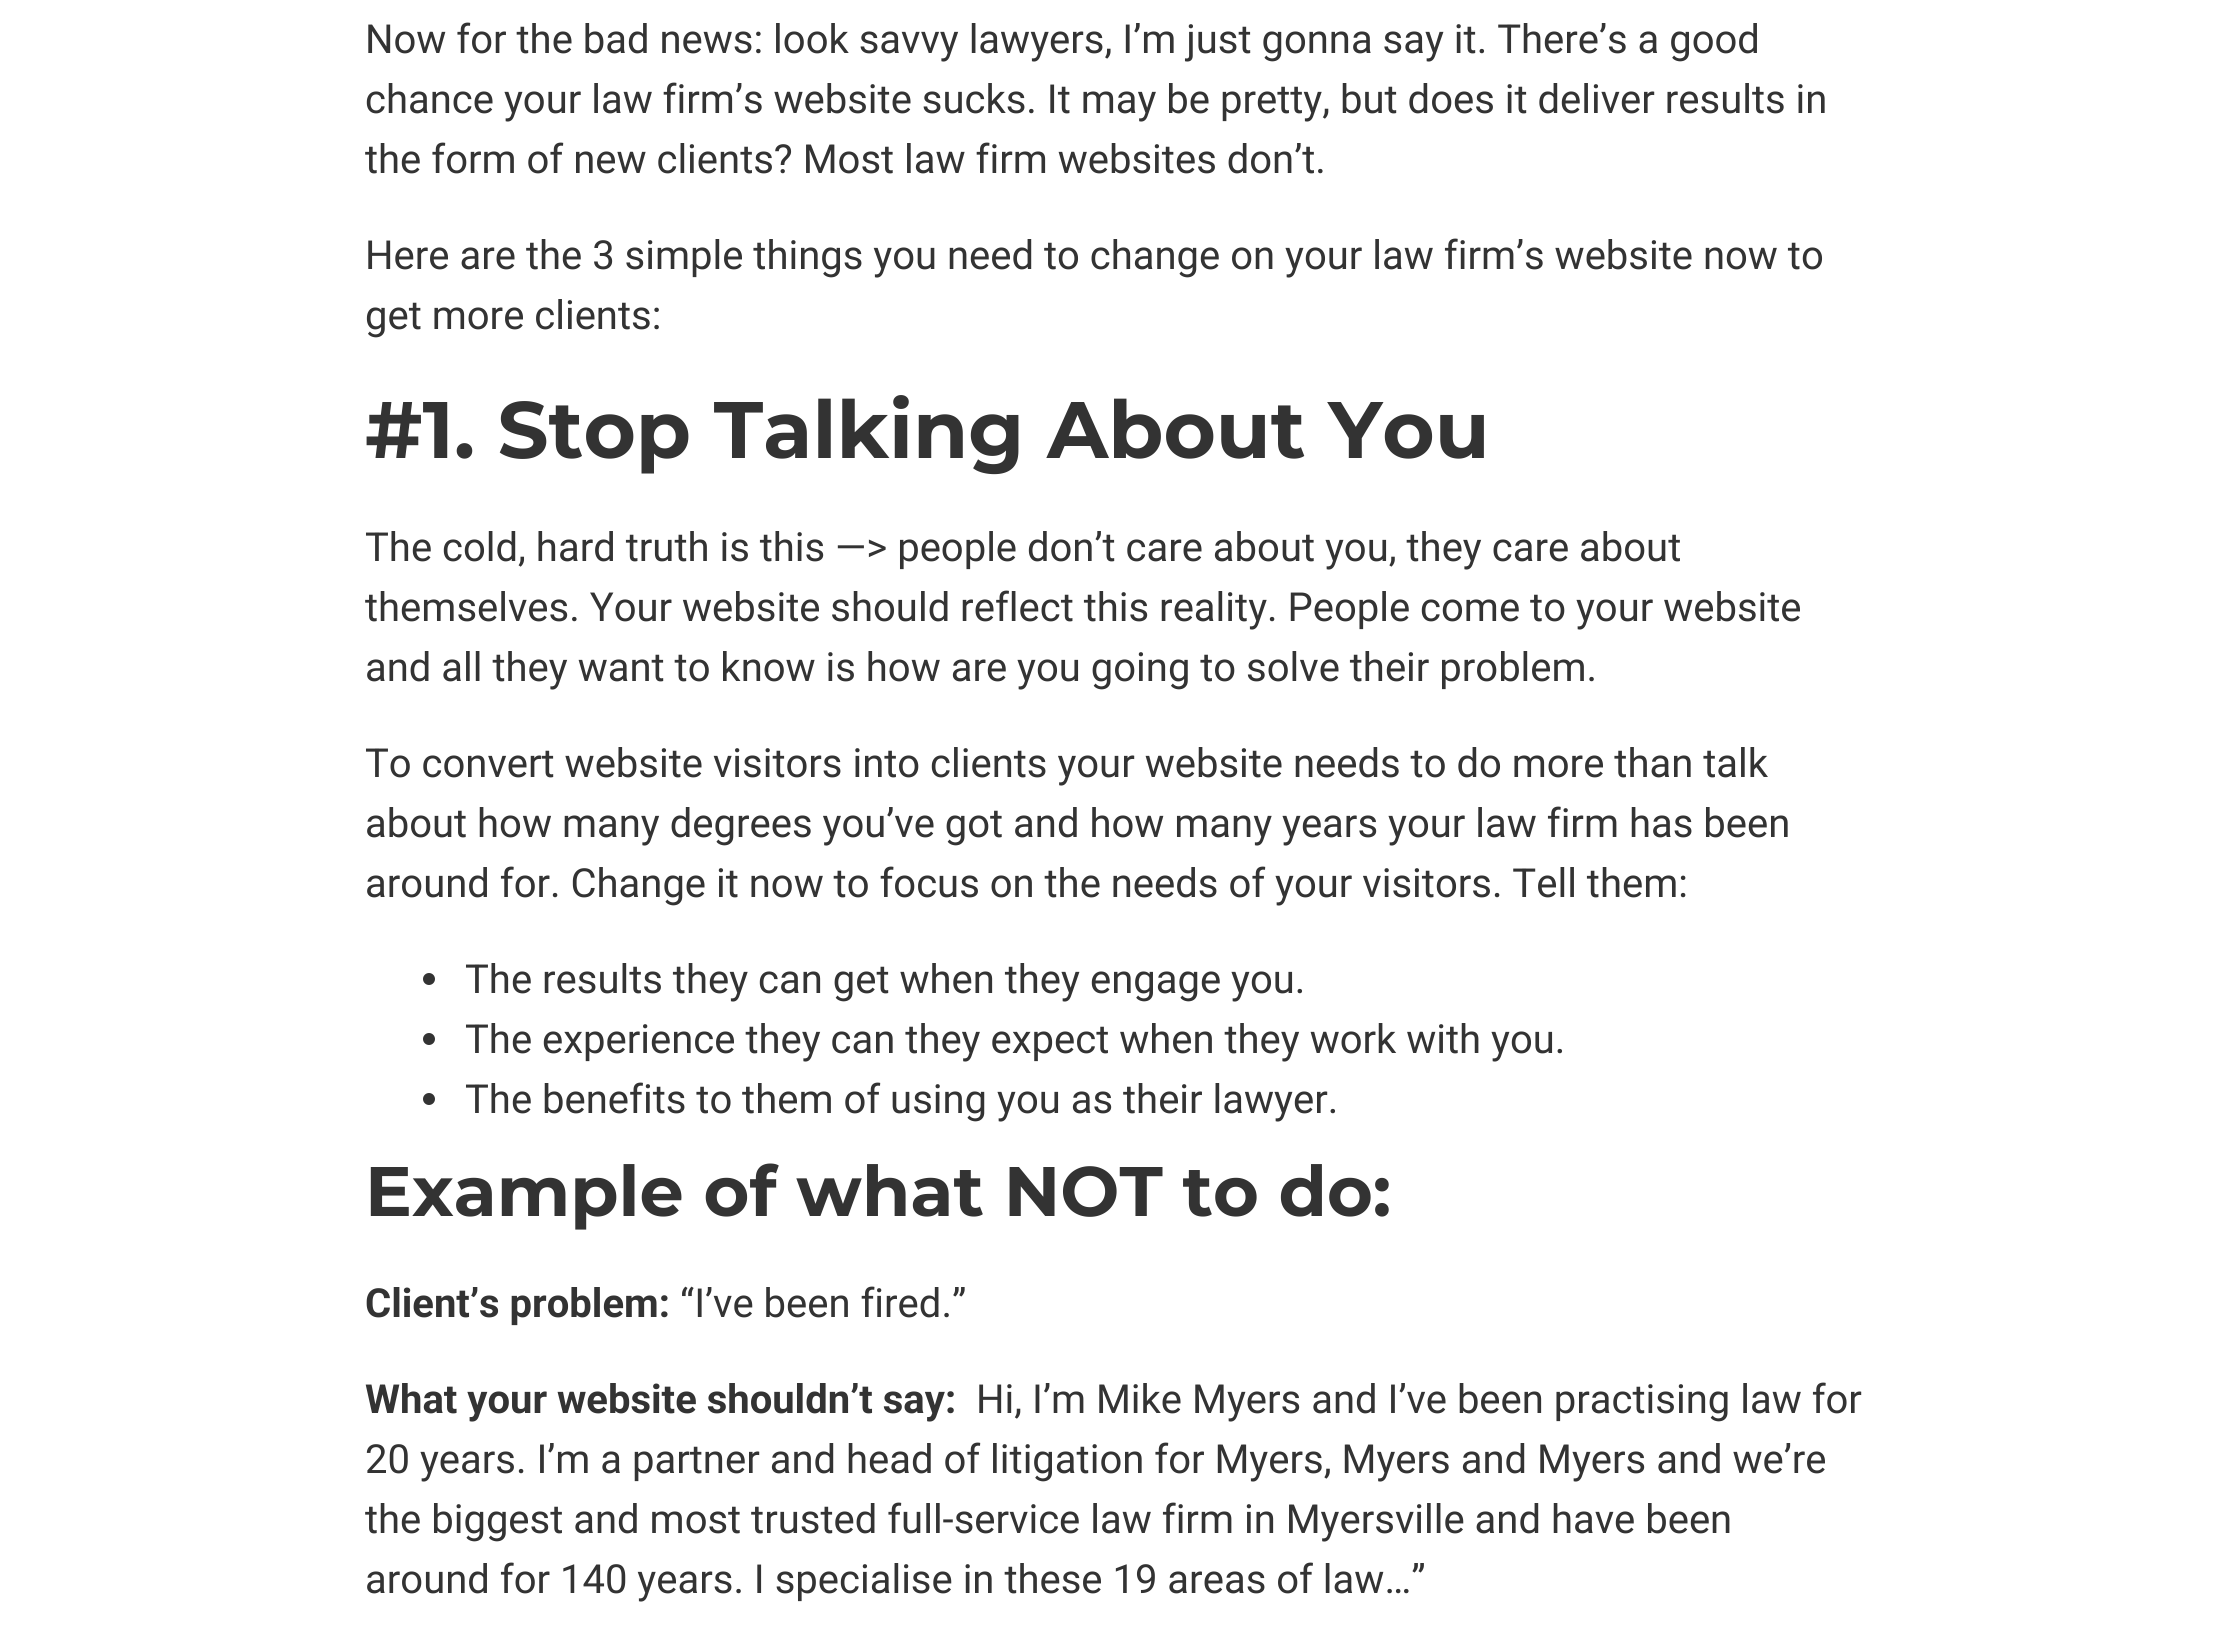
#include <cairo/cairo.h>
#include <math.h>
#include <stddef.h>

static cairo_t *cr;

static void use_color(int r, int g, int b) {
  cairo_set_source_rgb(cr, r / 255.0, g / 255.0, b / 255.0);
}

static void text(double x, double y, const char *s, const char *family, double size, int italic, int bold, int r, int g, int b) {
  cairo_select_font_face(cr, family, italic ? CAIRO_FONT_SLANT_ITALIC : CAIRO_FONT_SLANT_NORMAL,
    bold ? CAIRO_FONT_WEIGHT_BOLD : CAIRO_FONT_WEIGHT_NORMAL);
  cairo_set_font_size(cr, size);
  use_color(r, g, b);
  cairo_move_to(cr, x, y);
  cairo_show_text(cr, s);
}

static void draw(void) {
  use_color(255, 255, 255);
  cairo_paint(cr);
  use_color(51, 51, 51);
  cairo_arc(cr, 429, 979, 6, 0, 2 * M_PI);
  cairo_fill(cr);
  cairo_arc(cr, 429, 1039, 6, 0, 2 * M_PI);
  cairo_fill(cr);
  cairo_arc(cr, 429, 1099, 6, 0, 2 * M_PI);
  cairo_fill(cr);
  text(365, 53, "Now for the bad news: look savvy lawyers, I’m just gonna say it. There’s a good", "Roboto", 40, 0, 0, 51, 51, 51);
  text(365, 113, "chance your law firm’s website sucks. It may be pretty, but does it deliver results in", "Roboto", 40, 0, 0, 51, 51, 51);
  text(365, 173, "the form of new clients? Most law firm websites don’t.", "Roboto", 40, 0, 0, 51, 51, 51);
  text(365, 269, "Here are the 3 simple things you need to change on your law firm’s website now to", "Roboto", 40, 0, 0, 51, 51, 51);
  text(365, 329, "get more clients:", "Roboto", 40, 0, 0, 51, 51, 51);
  text(365, 458, "#1. Stop Talking About You", "Montserrat", 80, 0, 1, 51, 51, 51);
  text(365, 561, "The cold, hard truth is this —> people don’t care about you, they care about", "Roboto", 40, 0, 0, 51, 51, 51);
  text(365, 621, "themselves. Your website should reflect this reality. People come to your website", "Roboto", 40, 0, 0, 51, 51, 51);
  text(365, 681, "and all they want to know is how are you going to solve their problem.", "Roboto", 40, 0, 0, 51, 51, 51);
  text(365, 777, "To convert website visitors into clients your website needs to do more than talk", "Roboto", 40, 0, 0, 51, 51, 51);
  text(365, 837, "about how many degrees you’ve got and how many years your law firm has been", "Roboto", 40, 0, 0, 51, 51, 51);
  text(365, 897, "around for. Change it now to focus on the needs of your visitors. Tell them:", "Roboto", 40, 0, 0, 51, 51, 51);
  text(465, 993, "The results they can get when they engage you.", "Roboto", 40, 0, 0, 51, 51, 51);
  text(465, 1053, "The experience they can they expect when they work with you.", "Roboto", 40, 0, 0, 51, 51, 51);
  text(465, 1113, "The benefits to them of using you as their lawyer.", "Roboto", 40, 0, 0, 51, 51, 51);
  text(365, 1216, "Example of what NOT to do:", "Montserrat", 70, 0, 1, 51, 51, 51);
  text(365, 1317, "Client’s problem:", "Roboto", 40, 0, 1, 51, 51, 51);
  text(680, 1317, "“I’ve been fired.”", "Roboto", 40, 0, 0, 51, 51, 51);
  text(365, 1413, "What your website shouldn’t say:", "Roboto", 40, 0, 1, 51, 51, 51);
  text(976, 1413, "Hi, I’m Mike Myers and I’ve been practising law for", "Roboto", 40, 0, 0, 51, 51, 51);
  text(365, 1473, "20 years. I’m a partner and head of litigation for Myers, Myers and Myers and we’re", "Roboto", 40, 0, 0, 51, 51, 51);
  text(365, 1533, "the biggest and most trusted full-service law firm in Myersville and have been", "Roboto", 40, 0, 0, 51, 51, 51);
  text(365, 1593, "around for 140 years. I specialise in these 19 areas of law…”", "Roboto", 40, 0, 0, 51, 51, 51);
}

int main(void) {
  cairo_surface_t *surface = cairo_image_surface_create(CAIRO_FORMAT_RGB24, 2228, 1642);
  cr = cairo_create(surface);
  cairo_font_options_t *options = cairo_font_options_create();
  cairo_font_options_set_hint_metrics(options, CAIRO_HINT_METRICS_OFF);
  cairo_font_options_set_hint_style(options, CAIRO_HINT_STYLE_NONE);
  cairo_set_font_options(cr, options);
  cairo_set_miter_limit(cr, 4);
  draw();
  cairo_surface_write_to_png(surface, "out.png");
  cairo_font_options_destroy(options);
  cairo_destroy(cr);
  cairo_surface_destroy(surface);
  return 0;
}
